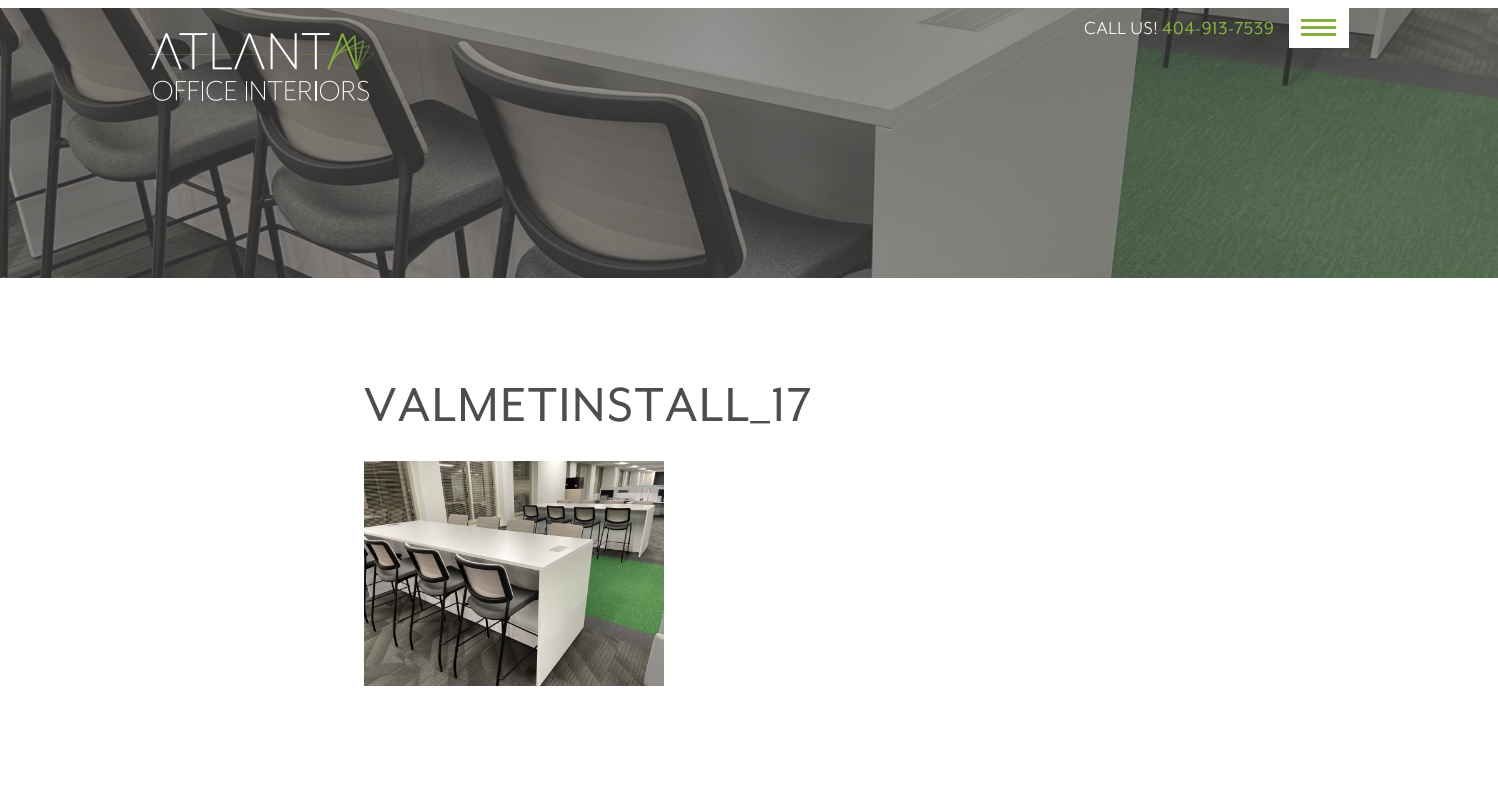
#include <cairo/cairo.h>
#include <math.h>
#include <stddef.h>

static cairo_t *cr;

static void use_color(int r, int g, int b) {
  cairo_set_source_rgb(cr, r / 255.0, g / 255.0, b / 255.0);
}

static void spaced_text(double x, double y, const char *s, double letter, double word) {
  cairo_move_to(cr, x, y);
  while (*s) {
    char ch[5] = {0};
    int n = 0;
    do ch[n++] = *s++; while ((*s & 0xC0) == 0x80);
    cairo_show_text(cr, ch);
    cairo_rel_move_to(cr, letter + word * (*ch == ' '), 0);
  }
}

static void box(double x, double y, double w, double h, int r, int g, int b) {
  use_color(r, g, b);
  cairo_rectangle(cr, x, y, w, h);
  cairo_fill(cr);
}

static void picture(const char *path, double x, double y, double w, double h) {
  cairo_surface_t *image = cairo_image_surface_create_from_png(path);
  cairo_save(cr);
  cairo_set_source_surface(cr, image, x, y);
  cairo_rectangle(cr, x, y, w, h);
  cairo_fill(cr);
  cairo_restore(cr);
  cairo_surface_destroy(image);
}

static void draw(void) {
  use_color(255, 255, 255);
  cairo_paint(cr);
  picture("img_01.png", 0, 8, 1498, 270);
  box(1289, 8, 60, 40, 255, 255, 255);
  box(1301, 19, 35, 3, 134, 177, 63);
  box(1301, 26, 35, 3, 134, 177, 63);
  box(1301, 33, 35, 3, 134, 177, 63);
  picture("img_02.png", 149, 33, 225, 68);
  picture("img_03.png", 364, 461, 300, 225);
  cairo_select_font_face(cr, "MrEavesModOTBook", CAIRO_FONT_SLANT_NORMAL, CAIRO_FONT_WEIGHT_NORMAL);
  cairo_set_font_size(cr, 20);
  use_color(255, 255, 255);
  spaced_text(1084, 34, "CALL US!", 0.5, 0);
  cairo_select_font_face(cr, "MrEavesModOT", CAIRO_FONT_SLANT_NORMAL, CAIRO_FONT_WEIGHT_NORMAL);
  use_color(134, 177, 63);
  spaced_text(1162, 34, "404-913-7539", 0.5, 0);
  cairo_set_font_size(cr, 55);
  use_color(77, 77, 77);
  spaced_text(364, 421, "VALMETINSTALL_17", 1.4, 0);
}

int main(void) {
  cairo_surface_t *surface = cairo_image_surface_create(CAIRO_FORMAT_RGB24, 1498, 811);
  cr = cairo_create(surface);
  cairo_font_options_t *options = cairo_font_options_create();
  cairo_font_options_set_hint_metrics(options, CAIRO_HINT_METRICS_OFF);
  cairo_font_options_set_hint_style(options, CAIRO_HINT_STYLE_NONE);
  cairo_set_font_options(cr, options);
  cairo_set_miter_limit(cr, 4);
  draw();
  cairo_surface_write_to_png(surface, "out.png");
  cairo_font_options_destroy(options);
  cairo_destroy(cr);
  cairo_surface_destroy(surface);
  return 0;
}
